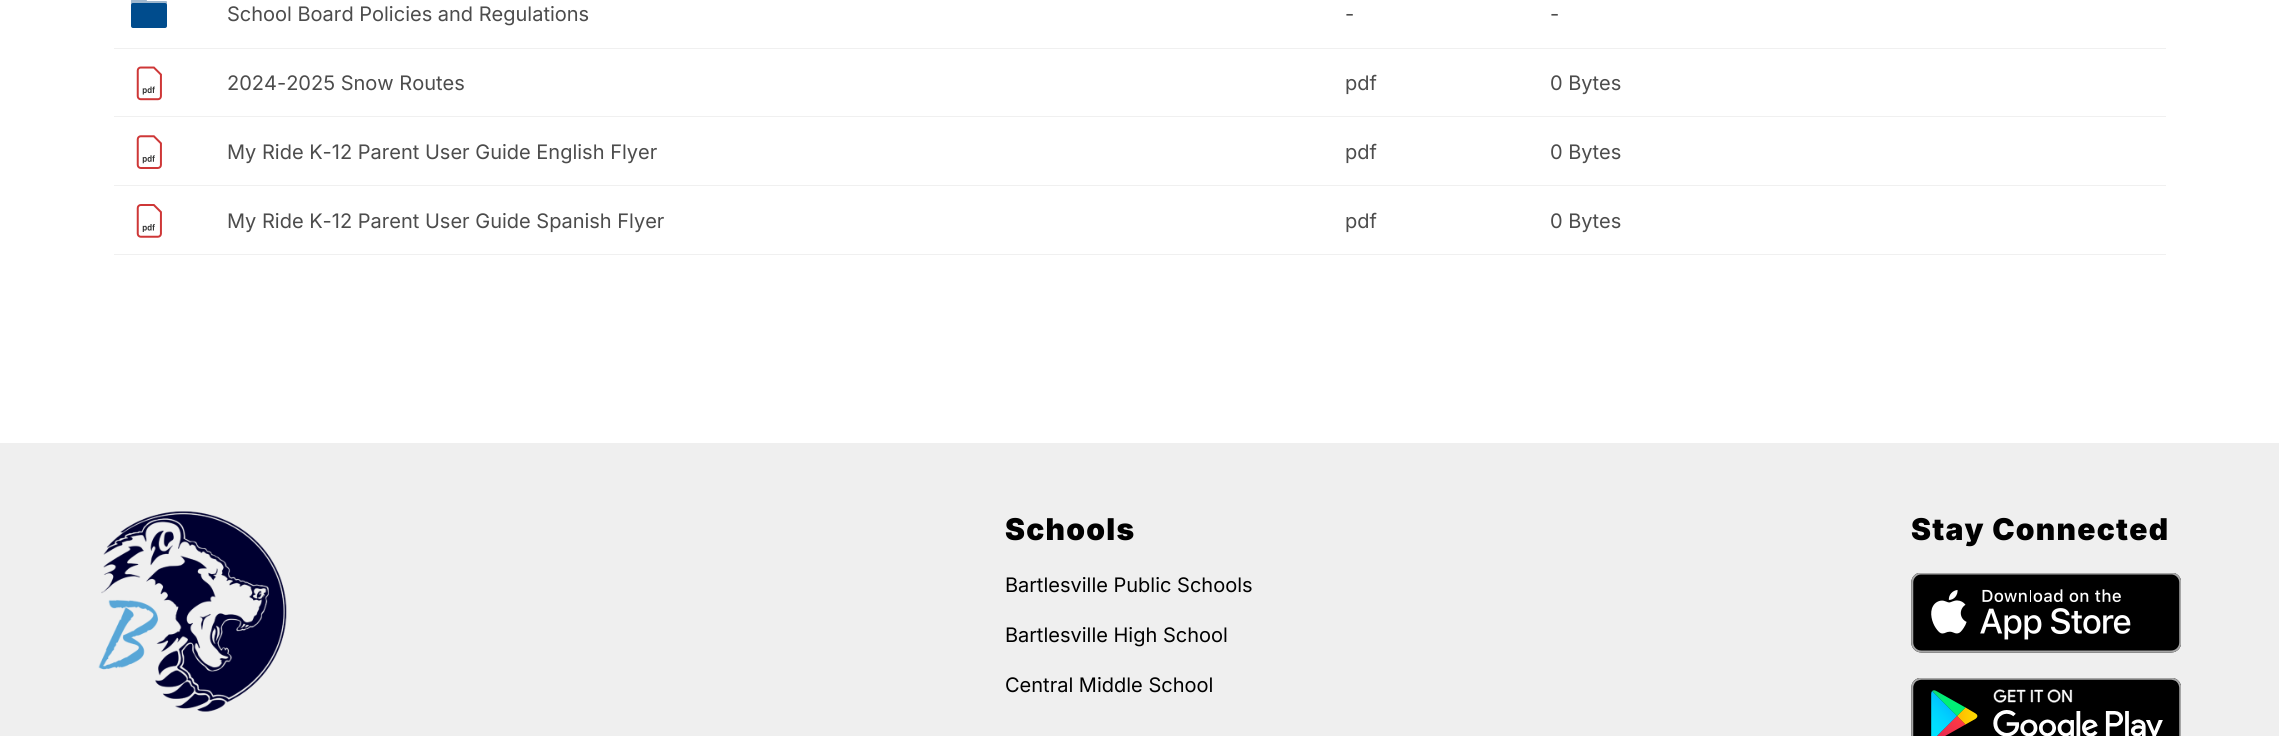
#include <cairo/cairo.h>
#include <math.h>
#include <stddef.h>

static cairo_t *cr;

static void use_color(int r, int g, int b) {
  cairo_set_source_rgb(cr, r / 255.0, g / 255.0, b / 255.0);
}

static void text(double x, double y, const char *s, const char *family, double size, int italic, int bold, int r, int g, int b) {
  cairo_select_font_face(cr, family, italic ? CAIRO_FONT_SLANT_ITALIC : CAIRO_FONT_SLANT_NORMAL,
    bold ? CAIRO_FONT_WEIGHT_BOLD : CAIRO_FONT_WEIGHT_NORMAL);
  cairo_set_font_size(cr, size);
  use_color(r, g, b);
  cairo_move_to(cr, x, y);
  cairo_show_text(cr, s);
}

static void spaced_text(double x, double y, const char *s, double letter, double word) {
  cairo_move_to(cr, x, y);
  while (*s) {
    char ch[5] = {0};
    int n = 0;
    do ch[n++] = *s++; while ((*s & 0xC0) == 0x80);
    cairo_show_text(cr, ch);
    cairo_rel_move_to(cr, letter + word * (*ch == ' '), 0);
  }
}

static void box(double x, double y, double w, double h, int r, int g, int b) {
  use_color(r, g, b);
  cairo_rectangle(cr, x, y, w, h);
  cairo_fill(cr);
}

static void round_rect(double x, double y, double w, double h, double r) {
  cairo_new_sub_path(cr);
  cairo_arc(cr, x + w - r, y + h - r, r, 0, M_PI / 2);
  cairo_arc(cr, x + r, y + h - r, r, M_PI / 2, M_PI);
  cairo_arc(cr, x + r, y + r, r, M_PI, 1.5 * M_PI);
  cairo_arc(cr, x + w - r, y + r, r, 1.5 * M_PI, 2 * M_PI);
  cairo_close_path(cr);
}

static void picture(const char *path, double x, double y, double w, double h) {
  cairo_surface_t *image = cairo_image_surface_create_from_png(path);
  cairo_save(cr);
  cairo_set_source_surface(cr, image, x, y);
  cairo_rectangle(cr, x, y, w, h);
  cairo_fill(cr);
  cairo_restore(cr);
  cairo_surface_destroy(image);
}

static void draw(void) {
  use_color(255, 255, 255);
  cairo_paint(cr);
  box(114, 48, 2052, 1, 240, 240, 240);
  use_color(158, 183, 206);
  round_rect(131, 1, 36, 4, 1);
  cairo_fill(cr);
  cairo_new_path(cr);
  cairo_move_to(cr, 133, -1.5);
  cairo_line_to(cr, 141, -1.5);
  cairo_curve_to(cr, 145.5, -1.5, 147, -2.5, 147, 2.5);
  cairo_line_to(cr, 131, 2.5);
  cairo_curve_to(cr, 131, 1, 130.5, -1.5, 133, -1.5);
  cairo_close_path(cr);
  cairo_fill(cr);
  use_color(0, 76, 141);
  round_rect(131, 3, 36, 25, 2);
  cairo_fill(cr);
  box(114, 116, 2052, 1, 240, 240, 240);
  picture("img_01.png", 136, 66, 26, 35);
  box(114, 185, 2052, 1, 240, 240, 240);
  picture("img_02.png", 136, 135, 26, 34);
  box(114, 254, 2052, 1, 240, 240, 240);
  picture("img_03.png", 136, 204, 26, 34);
  box(0, 443, 2279, 293, 239, 239, 239);
  picture("img_04.png", 98, 511, 189, 201);
  picture("img_05.png", 1911, 573, 270, 80);
  picture("img_06.png", 1911, 678, 270, 58);
  text(227, 21, "School Board Policies and Regulations", "Inter", 20, 0, 0, 76, 76, 76);
  text(1345, 21, "-", "Inter", 20, 0, 0, 76, 76, 76);
  text(1550, 21, "-", "Inter", 20, 0, 0, 76, 76, 76);
  text(227, 90, "2024-2025 Snow Routes", "Inter", 20, 0, 0, 76, 76, 76);
  text(1345, 90, "pdf", "Inter", 20, 0, 0, 76, 76, 76);
  text(1550, 90, "0 Bytes", "Inter", 20, 0, 0, 76, 76, 76);
  text(227, 159, "My Ride K-12 Parent User Guide English Flyer", "Inter", 20, 0, 0, 76, 76, 76);
  text(1345, 159, "pdf", "Inter", 20, 0, 0, 76, 76, 76);
  text(1550, 159, "0 Bytes", "Inter", 20, 0, 0, 76, 76, 76);
  text(227, 228, "My Ride K-12 Parent User Guide Spanish Flyer", "Inter", 20, 0, 0, 76, 76, 76);
  text(1345, 228, "pdf", "Inter", 20, 0, 0, 76, 76, 76);
  text(1550, 228, "0 Bytes", "Inter", 20, 0, 0, 76, 76, 76);
  cairo_select_font_face(cr, "Inter Black", CAIRO_FONT_SLANT_NORMAL, CAIRO_FONT_WEIGHT_NORMAL);
  cairo_set_font_size(cr, 30);
  use_color(0, 0, 0);
  spaced_text(1005, 540, "Schools", 1.25, 0);
  text(1005, 592, "Bartlesville Public Schools", "Inter", 20, 0, 0, 0, 0, 0);
  text(1005, 642, "Bartlesville High School", "Inter", 20, 0, 0, 0, 0, 0);
  text(1005, 692, "Central Middle School", "Inter", 20, 0, 0, 0, 0, 0);
  cairo_select_font_face(cr, "Inter Black", CAIRO_FONT_SLANT_NORMAL, CAIRO_FONT_WEIGHT_NORMAL);
  cairo_set_font_size(cr, 30);
  spaced_text(1911, 540, "Stay Connected", 1.25, 0);
}

int main(void) {
  cairo_surface_t *surface = cairo_image_surface_create(CAIRO_FORMAT_RGB24, 2279, 736);
  cr = cairo_create(surface);
  cairo_font_options_t *options = cairo_font_options_create();
  cairo_font_options_set_hint_metrics(options, CAIRO_HINT_METRICS_OFF);
  cairo_font_options_set_hint_style(options, CAIRO_HINT_STYLE_NONE);
  cairo_set_font_options(cr, options);
  cairo_set_miter_limit(cr, 4);
  draw();
  cairo_surface_write_to_png(surface, "out.png");
  cairo_font_options_destroy(options);
  cairo_destroy(cr);
  cairo_surface_destroy(surface);
  return 0;
}
